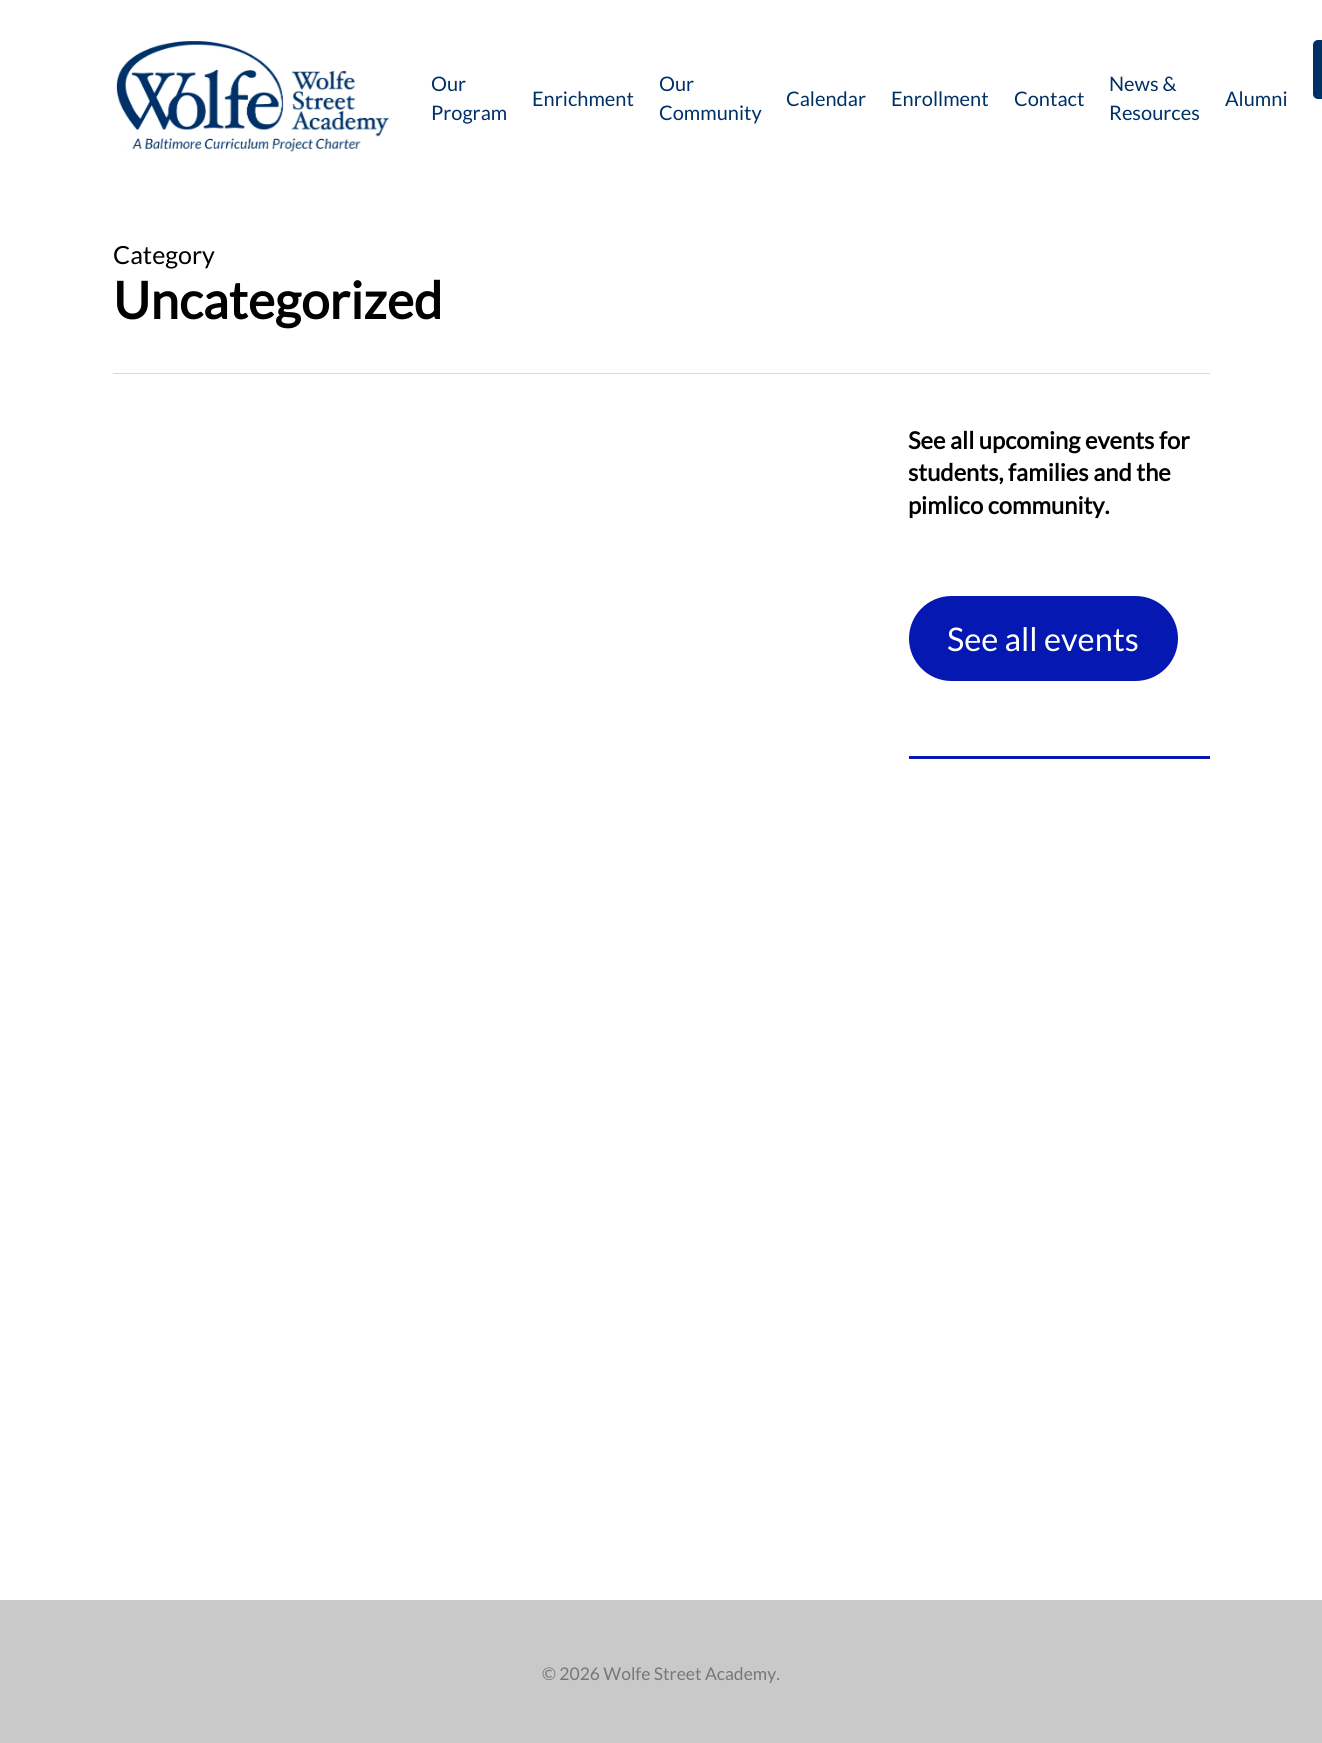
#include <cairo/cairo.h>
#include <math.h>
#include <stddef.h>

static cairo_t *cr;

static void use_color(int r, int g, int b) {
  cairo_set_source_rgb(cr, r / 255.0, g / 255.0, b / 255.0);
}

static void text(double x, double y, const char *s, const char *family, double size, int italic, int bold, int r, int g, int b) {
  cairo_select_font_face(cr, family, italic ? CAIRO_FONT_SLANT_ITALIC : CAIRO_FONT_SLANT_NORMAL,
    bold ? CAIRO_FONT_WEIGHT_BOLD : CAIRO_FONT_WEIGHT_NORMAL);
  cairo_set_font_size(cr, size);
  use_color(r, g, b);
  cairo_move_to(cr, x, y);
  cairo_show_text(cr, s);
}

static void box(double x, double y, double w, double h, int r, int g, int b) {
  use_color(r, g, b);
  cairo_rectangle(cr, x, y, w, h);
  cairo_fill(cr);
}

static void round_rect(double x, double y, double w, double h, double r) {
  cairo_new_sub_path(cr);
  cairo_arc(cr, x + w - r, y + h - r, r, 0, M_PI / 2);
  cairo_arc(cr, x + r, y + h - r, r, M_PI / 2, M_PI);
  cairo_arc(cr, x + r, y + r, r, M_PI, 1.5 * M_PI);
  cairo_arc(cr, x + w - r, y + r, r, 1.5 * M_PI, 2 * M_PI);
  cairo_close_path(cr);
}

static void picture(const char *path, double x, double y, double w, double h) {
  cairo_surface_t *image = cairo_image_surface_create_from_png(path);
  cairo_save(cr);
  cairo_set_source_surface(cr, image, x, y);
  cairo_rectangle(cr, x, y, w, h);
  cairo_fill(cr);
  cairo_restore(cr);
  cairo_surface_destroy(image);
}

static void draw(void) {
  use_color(255, 255, 255);
  cairo_paint(cr);
  picture("img_01.png", 116, 41, 274, 111);
  use_color(0, 48, 104);
  round_rect(1313, 40, 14, 59, 5);
  cairo_fill(cr);
  box(113, 373, 1097, 1, 217, 217, 217);
  use_color(5, 24, 178);
  round_rect(909, 596, 269, 85, 42.5);
  cairo_fill(cr);
  box(909, 756, 301, 3, 5, 24, 178);
  box(0, 1600, 1322, 143, 201, 201, 201);
  text(431, 91, "Our", "Lato", 20, 0, 0, 0, 48, 104);
  text(431, 120, "Program", "Lato", 20, 0, 0, 0, 48, 104);
  text(532, 106, "Enrichment", "Lato", 20, 0, 0, 0, 48, 104);
  text(659, 91, "Our", "Lato", 20, 0, 0, 0, 48, 104);
  text(659, 120, "Community", "Lato", 20, 0, 0, 0, 48, 104);
  text(786, 106, "Calendar", "Lato", 20, 0, 0, 0, 48, 104);
  text(891, 106, "Enrollment", "Lato", 20, 0, 0, 0, 48, 104);
  text(1014, 106, "Contact", "Lato", 20, 0, 0, 0, 48, 104);
  text(1109, 91, "News &", "Lato", 20, 0, 0, 0, 48, 104);
  text(1109, 120, "Resources", "Lato", 20, 0, 0, 0, 48, 104);
  text(1225, 106, "Alumni", "Lato", 20, 0, 0, 0, 48, 104);
  text(113, 264, "Category", "Lato", 25, 0, 0, 0, 0, 0);
  text(113, 319, "Uncategorized", "Lato", 51.25, 0, 1, 0, 0, 0);
  text(908, 449, "See all upcoming events for", "Lato", 23.75, 0, 1, 0, 0, 0);
  text(908, 481, "students, families and the", "Lato", 23.75, 0, 1, 0, 0, 0);
  text(908, 514, "pimlico community.", "Lato", 23.75, 0, 1, 0, 0, 0);
  text(947, 651, "See all events", "Lato", 32.5, 0, 0, 255, 255, 255);
  text(542, 1680, "© 2026 Wolfe Street Academy.", "Lato", 17.5, 0, 0, 119, 119, 119);
}

int main(void) {
  cairo_surface_t *surface = cairo_image_surface_create(CAIRO_FORMAT_RGB24, 1322, 1743);
  cr = cairo_create(surface);
  cairo_font_options_t *options = cairo_font_options_create();
  cairo_font_options_set_hint_metrics(options, CAIRO_HINT_METRICS_OFF);
  cairo_font_options_set_hint_style(options, CAIRO_HINT_STYLE_NONE);
  cairo_set_font_options(cr, options);
  cairo_set_miter_limit(cr, 4);
  draw();
  cairo_surface_write_to_png(surface, "out.png");
  cairo_font_options_destroy(options);
  cairo_destroy(cr);
  cairo_surface_destroy(surface);
  return 0;
}
